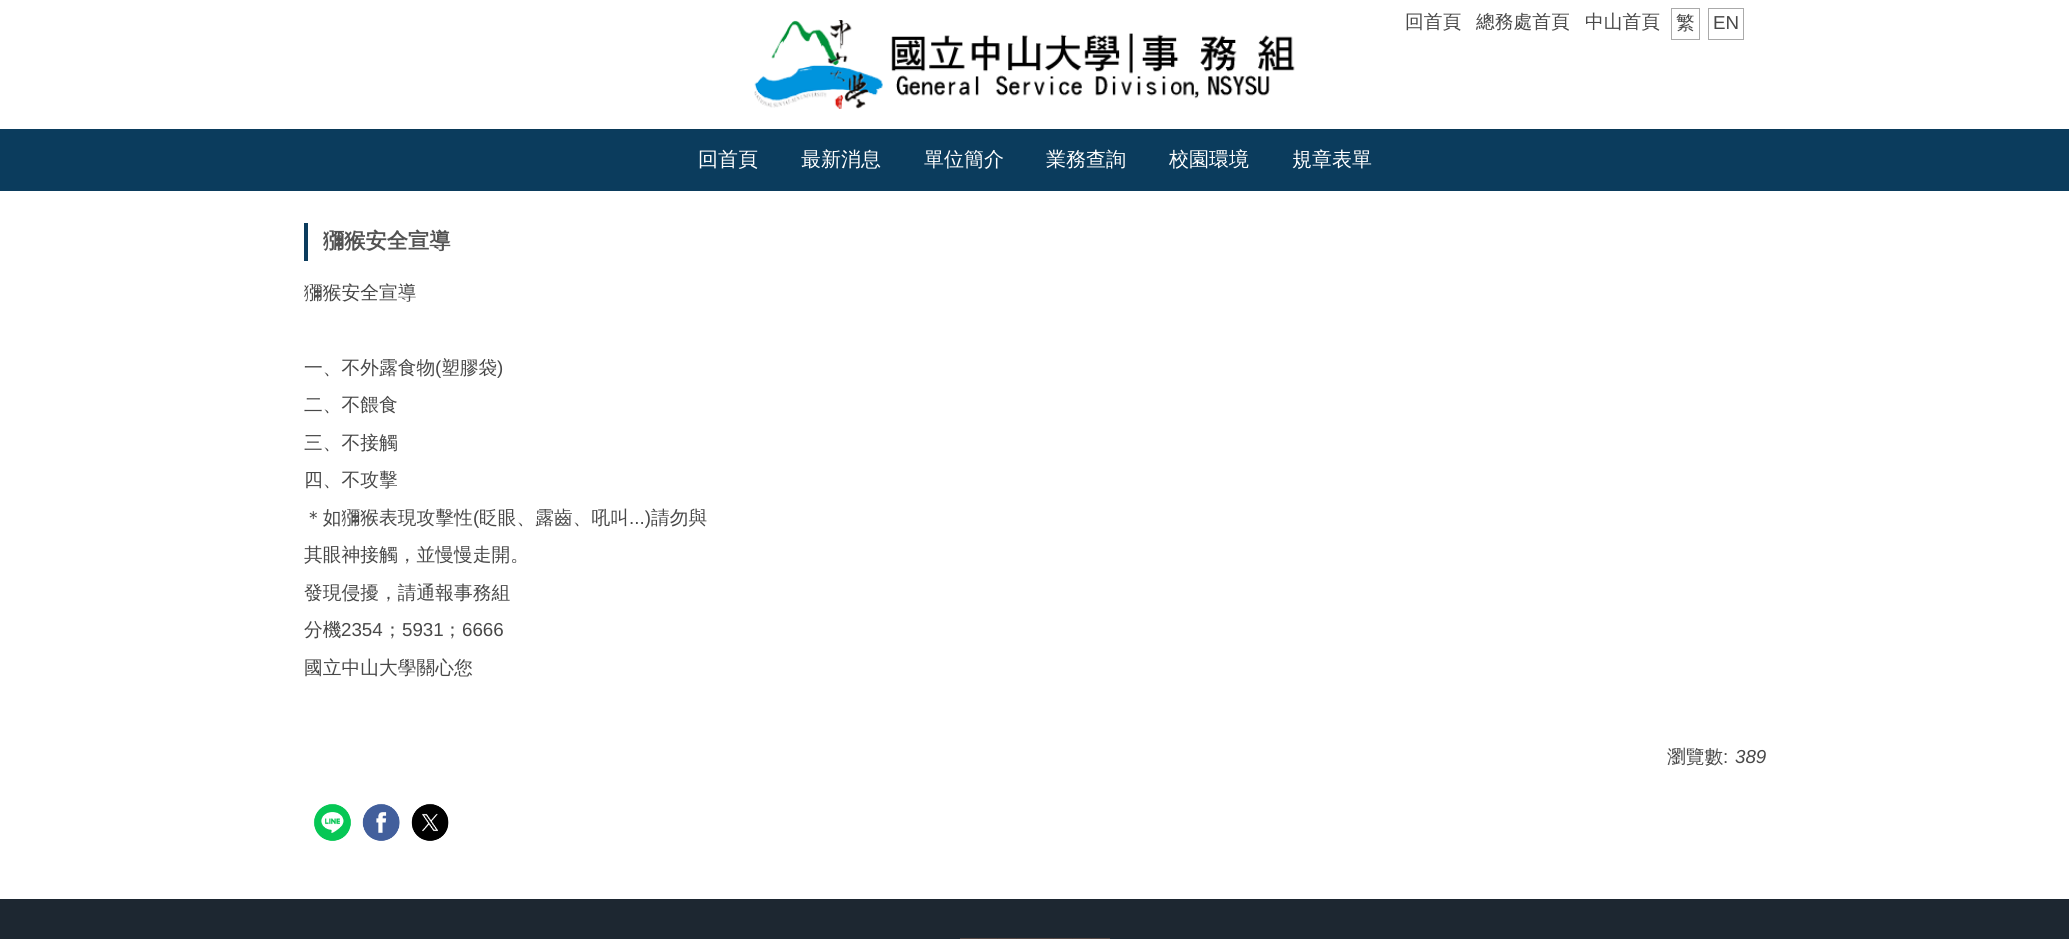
#include <cairo/cairo.h>
#include <math.h>
#include <stddef.h>

static cairo_t *cr;

static void use_color(int r, int g, int b) {
  cairo_set_source_rgb(cr, r / 255.0, g / 255.0, b / 255.0);
}

static void text(double x, double y, const char *s, const char *family, double size, int italic, int bold, int r, int g, int b) {
  cairo_select_font_face(cr, family, italic ? CAIRO_FONT_SLANT_ITALIC : CAIRO_FONT_SLANT_NORMAL,
    bold ? CAIRO_FONT_WEIGHT_BOLD : CAIRO_FONT_WEIGHT_NORMAL);
  cairo_set_font_size(cr, size);
  use_color(r, g, b);
  cairo_move_to(cr, x, y);
  cairo_show_text(cr, s);
}

static void box(double x, double y, double w, double h, int r, int g, int b) {
  use_color(r, g, b);
  cairo_rectangle(cr, x, y, w, h);
  cairo_fill(cr);
}

static void picture(const char *path, double x, double y, double w, double h) {
  cairo_surface_t *image = cairo_image_surface_create_from_png(path);
  cairo_save(cr);
  cairo_set_source_surface(cr, image, x, y);
  cairo_rectangle(cr, x, y, w, h);
  cairo_fill(cr);
  cairo_restore(cr);
  cairo_surface_destroy(image);
}

static void draw(void) {
  use_color(255, 255, 255);
  cairo_paint(cr);
  box(0, 129, 2069, 62, 11, 60, 93);
  box(285, 129, 1500, 1, 10, 57, 88);
  cairo_rectangle(cr, 1671.5, 8.5, 28, 31);
  use_color(170, 170, 170);
  cairo_set_line_width(cr, 1);
  cairo_stroke(cr);
  cairo_rectangle(cr, 1708.5, 8.5, 35, 31);
  cairo_stroke(cr);
  picture("img_01.png", 754, 20, 541, 89);
  box(304, 223, 4, 38, 11, 60, 93);
  picture("img_02.png", 313, 803, 38, 38);
  picture("img_03.png", 362, 803, 38, 38);
  picture("img_04.png", 411, 803, 38, 38);
  box(0, 899, 2069, 40, 29, 39, 49);
  picture("img_05.png", 960, 938, 19, 1);
  picture("img_06.png", 978, 938, 20, 1);
  picture("img_07.png", 997, 938, 20, 1);
  picture("img_08.png", 1016, 938, 19, 1);
  picture("img_05.png", 1035, 938, 19, 1);
  picture("img_06.png", 1053, 938, 20, 1);
  picture("img_07.png", 1072, 938, 20, 1);
  picture("img_08.png", 1091, 938, 19, 1);
  text(1405, 28, "回首頁", "WenQuanYi Zen Hei Medium", 18.75, 0, 0, 72, 72, 72);
  text(1476, 28, "總務處首頁", "WenQuanYi Zen Hei Medium", 18.75, 0, 0, 72, 72, 72);
  text(1585, 28, "中山首頁", "WenQuanYi Zen Hei Medium", 18.75, 0, 0, 72, 72, 72);
  text(1676, 29, "繁", "WenQuanYi Zen Hei Medium", 18.75, 0, 0, 72, 72, 72);
  text(1713, 29, "EN", "Liberation Sans", 18.75, 0, 0, 72, 72, 72);
  text(698, 166, "回首頁", "WenQuanYi Zen Hei Medium", 20, 0, 0, 255, 255, 255);
  text(801, 166, "最新消息", "WenQuanYi Zen Hei Medium", 20, 0, 0, 255, 255, 255);
  text(924, 166, "單位簡介", "WenQuanYi Zen Hei Medium", 20, 0, 0, 255, 255, 255);
  text(1046, 166, "業務查詢", "WenQuanYi Zen Hei Medium", 20, 0, 0, 255, 255, 255);
  text(1169, 166, "校園環境", "WenQuanYi Zen Hei Medium", 20, 0, 0, 255, 255, 255);
  text(1292, 166, "規章表單", "WenQuanYi Zen Hei Medium", 20, 0, 0, 255, 255, 255);
  text(323, 248, "獼猴安全宣導", "WenQuanYi Zen Hei", 21.25, 0, 1, 82, 82, 82);
  text(304, 299, "獼猴安全宣導", "WenQuanYi Zen Hei Medium", 18.75, 0, 0, 72, 72, 72);
  text(304, 374, "一、不外露食物", "WenQuanYi Zen Hei Medium", 18.75, 0, 0, 72, 72, 72);
  text(435, 374, "(", "Liberation Sans", 18.75, 0, 0, 72, 72, 72);
  text(441, 374, "塑膠袋", "WenQuanYi Zen Hei Medium", 18.75, 0, 0, 72, 72, 72);
  text(497, 374, ")", "Liberation Sans", 18.75, 0, 0, 72, 72, 72);
  text(304, 411, "二、不餵食", "WenQuanYi Zen Hei Medium", 18.75, 0, 0, 72, 72, 72);
  text(304, 449, "三、不接觸", "WenQuanYi Zen Hei Medium", 18.75, 0, 0, 72, 72, 72);
  text(304, 486, "四、不攻擊", "WenQuanYi Zen Hei Medium", 18.75, 0, 0, 72, 72, 72);
  text(304, 524, "＊如獼猴表現攻擊性", "WenQuanYi Zen Hei Medium", 18.75, 0, 0, 72, 72, 72);
  text(473, 524, "(", "Liberation Sans", 18.75, 0, 0, 72, 72, 72);
  text(479, 524, "眨眼、露齒、吼叫", "WenQuanYi Zen Hei Medium", 18.75, 0, 0, 72, 72, 72);
  text(629, 524, "...)", "Liberation Sans", 18.75, 0, 0, 72, 72, 72);
  text(651, 524, "請勿與", "WenQuanYi Zen Hei Medium", 18.75, 0, 0, 72, 72, 72);
  text(304, 561, "其眼神接觸，並慢慢走開。", "WenQuanYi Zen Hei Medium", 18.75, 0, 0, 72, 72, 72);
  text(304, 599, "發現侵擾，請通報事務組", "WenQuanYi Zen Hei Medium", 18.75, 0, 0, 72, 72, 72);
  text(304, 636, "分機", "WenQuanYi Zen Hei Medium", 18.75, 0, 0, 72, 72, 72);
  text(341, 636, "2354", "Liberation Sans", 18.75, 0, 0, 72, 72, 72);
  text(383, 636, "；", "WenQuanYi Zen Hei Medium", 18.75, 0, 0, 72, 72, 72);
  text(402, 636, "5931", "Liberation Sans", 18.75, 0, 0, 72, 72, 72);
  text(443, 636, "；", "WenQuanYi Zen Hei Medium", 18.75, 0, 0, 72, 72, 72);
  text(462, 636, "6666", "Liberation Sans", 18.75, 0, 0, 72, 72, 72);
  text(304, 674, "國立中山大學關心您", "WenQuanYi Zen Hei Medium", 18.75, 0, 0, 72, 72, 72);
  text(1667, 763, "瀏覽數", "WenQuanYi Zen Hei Medium", 18.75, 0, 0, 72, 72, 72);
  text(1723, 763, ":", "Liberation Sans", 18.75, 0, 0, 72, 72, 72);
  text(1735, 763, "389", "Liberation Sans", 18.75, 1, 0, 72, 72, 72);
}

int main(void) {
  cairo_surface_t *surface = cairo_image_surface_create(CAIRO_FORMAT_RGB24, 2069, 939);
  cr = cairo_create(surface);
  cairo_font_options_t *options = cairo_font_options_create();
  cairo_font_options_set_hint_metrics(options, CAIRO_HINT_METRICS_OFF);
  cairo_font_options_set_hint_style(options, CAIRO_HINT_STYLE_NONE);
  cairo_set_font_options(cr, options);
  cairo_set_miter_limit(cr, 4);
  draw();
  cairo_surface_write_to_png(surface, "out.png");
  cairo_font_options_destroy(options);
  cairo_destroy(cr);
  cairo_surface_destroy(surface);
  return 0;
}
